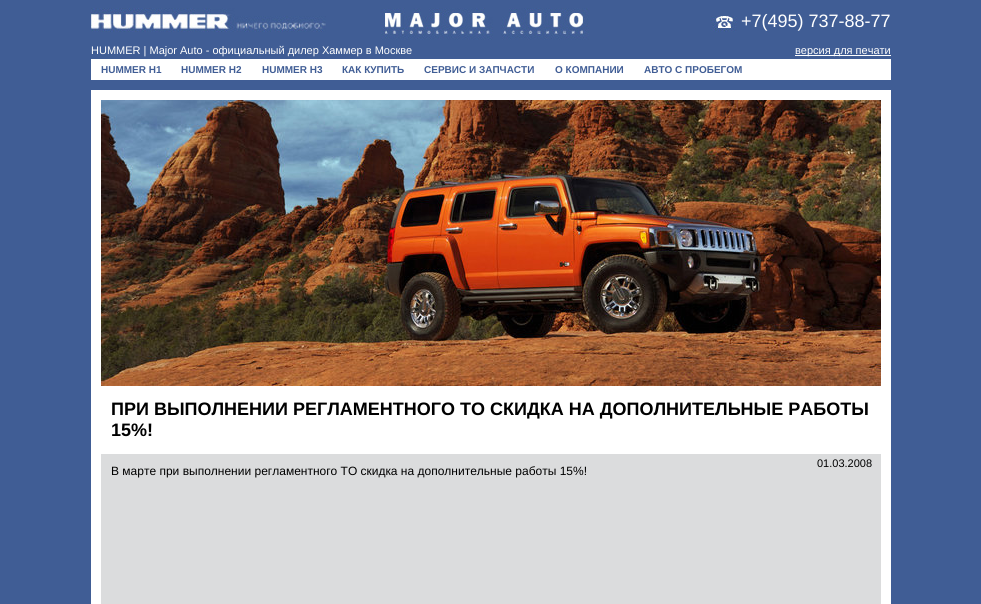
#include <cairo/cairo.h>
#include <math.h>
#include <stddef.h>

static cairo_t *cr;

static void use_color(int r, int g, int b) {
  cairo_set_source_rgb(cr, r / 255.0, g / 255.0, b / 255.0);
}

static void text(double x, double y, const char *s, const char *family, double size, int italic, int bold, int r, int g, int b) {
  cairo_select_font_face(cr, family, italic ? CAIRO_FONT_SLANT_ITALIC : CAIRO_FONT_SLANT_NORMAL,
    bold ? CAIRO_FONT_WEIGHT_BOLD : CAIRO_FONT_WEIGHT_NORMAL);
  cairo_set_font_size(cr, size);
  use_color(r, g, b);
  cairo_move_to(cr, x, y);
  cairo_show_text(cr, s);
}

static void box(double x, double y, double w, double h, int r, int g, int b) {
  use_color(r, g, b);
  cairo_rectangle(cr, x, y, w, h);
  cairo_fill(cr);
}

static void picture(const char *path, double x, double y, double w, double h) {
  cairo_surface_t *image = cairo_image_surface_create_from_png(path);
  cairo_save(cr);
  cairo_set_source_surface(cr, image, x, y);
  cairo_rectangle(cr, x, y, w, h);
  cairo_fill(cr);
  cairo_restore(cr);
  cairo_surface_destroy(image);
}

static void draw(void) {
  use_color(64, 93, 149);
  cairo_paint(cr);
  picture("img_01.png", 91, 8, 235, 24);
  picture("img_02.png", 381, 8, 208, 32);
  picture("img_03.png", 711, 16, 26, 16);
  box(795, 55, 96, 1, 255, 255, 255);
  box(91, 59, 800, 21, 255, 255, 255);
  box(91, 90, 800, 514, 255, 255, 255);
  picture("img_04.png", 101, 100, 780, 286);
  box(101, 454, 780, 150, 219, 220, 221);
  text(741, 27, "+7(495) 737-88-77", "Liberation Sans", 18, 0, 0, 255, 255, 255);
  text(91, 54, "HUMMER | Major Auto - официальный дилер Хаммер в Москве", "Liberation Sans", 11, 0, 0, 255, 255, 255);
  text(795, 54, "версия для печати", "Liberation Sans", 11, 0, 0, 255, 255, 255);
  text(101, 73, "HUMMER H1", "Liberation Sans", 10, 0, 1, 64, 93, 149);
  text(181, 73, "HUMMER H2", "Liberation Sans", 10, 0, 1, 64, 93, 149);
  text(262, 73, "HUMMER H3", "Liberation Sans", 10, 0, 1, 64, 93, 149);
  text(342, 73, "КАК КУПИТЬ", "Liberation Sans", 10, 0, 1, 64, 93, 149);
  text(424, 73, "СЕРВИС И ЗАПЧАСТИ", "Liberation Sans", 10, 0, 1, 64, 93, 149);
  text(555, 73, "О КОМПАНИИ", "Liberation Sans", 10, 0, 1, 64, 93, 149);
  text(644, 73, "АВТО С ПРОБЕГОМ", "Liberation Sans", 10, 0, 1, 64, 93, 149);
  text(111, 415, "ПРИ ВЫПОЛНЕНИИ РЕГЛАМЕНТНОГО ТО СКИДКА НА ДОПОЛНИТЕЛЬНЫЕ РАБОТЫ", "Liberation Sans", 18, 0, 1, 0, 0, 0);
  text(111, 436, "15%!", "Liberation Sans", 18, 0, 1, 0, 0, 0);
  text(817, 467, "01.03.2008", "Liberation Sans", 11, 0, 0, 0, 0, 0);
  text(111, 475, "В марте при выполнении регламентного ТО скидка на дополнительные работы 15%!", "Liberation Sans", 12, 0, 0, 0, 0, 0);
}

int main(void) {
  cairo_surface_t *surface = cairo_image_surface_create(CAIRO_FORMAT_RGB24, 981, 604);
  cr = cairo_create(surface);
  cairo_font_options_t *options = cairo_font_options_create();
  cairo_font_options_set_hint_metrics(options, CAIRO_HINT_METRICS_OFF);
  cairo_font_options_set_hint_style(options, CAIRO_HINT_STYLE_NONE);
  cairo_set_font_options(cr, options);
  cairo_set_miter_limit(cr, 4);
  draw();
  cairo_surface_write_to_png(surface, "out.png");
  cairo_font_options_destroy(options);
  cairo_destroy(cr);
  cairo_surface_destroy(surface);
  return 0;
}
